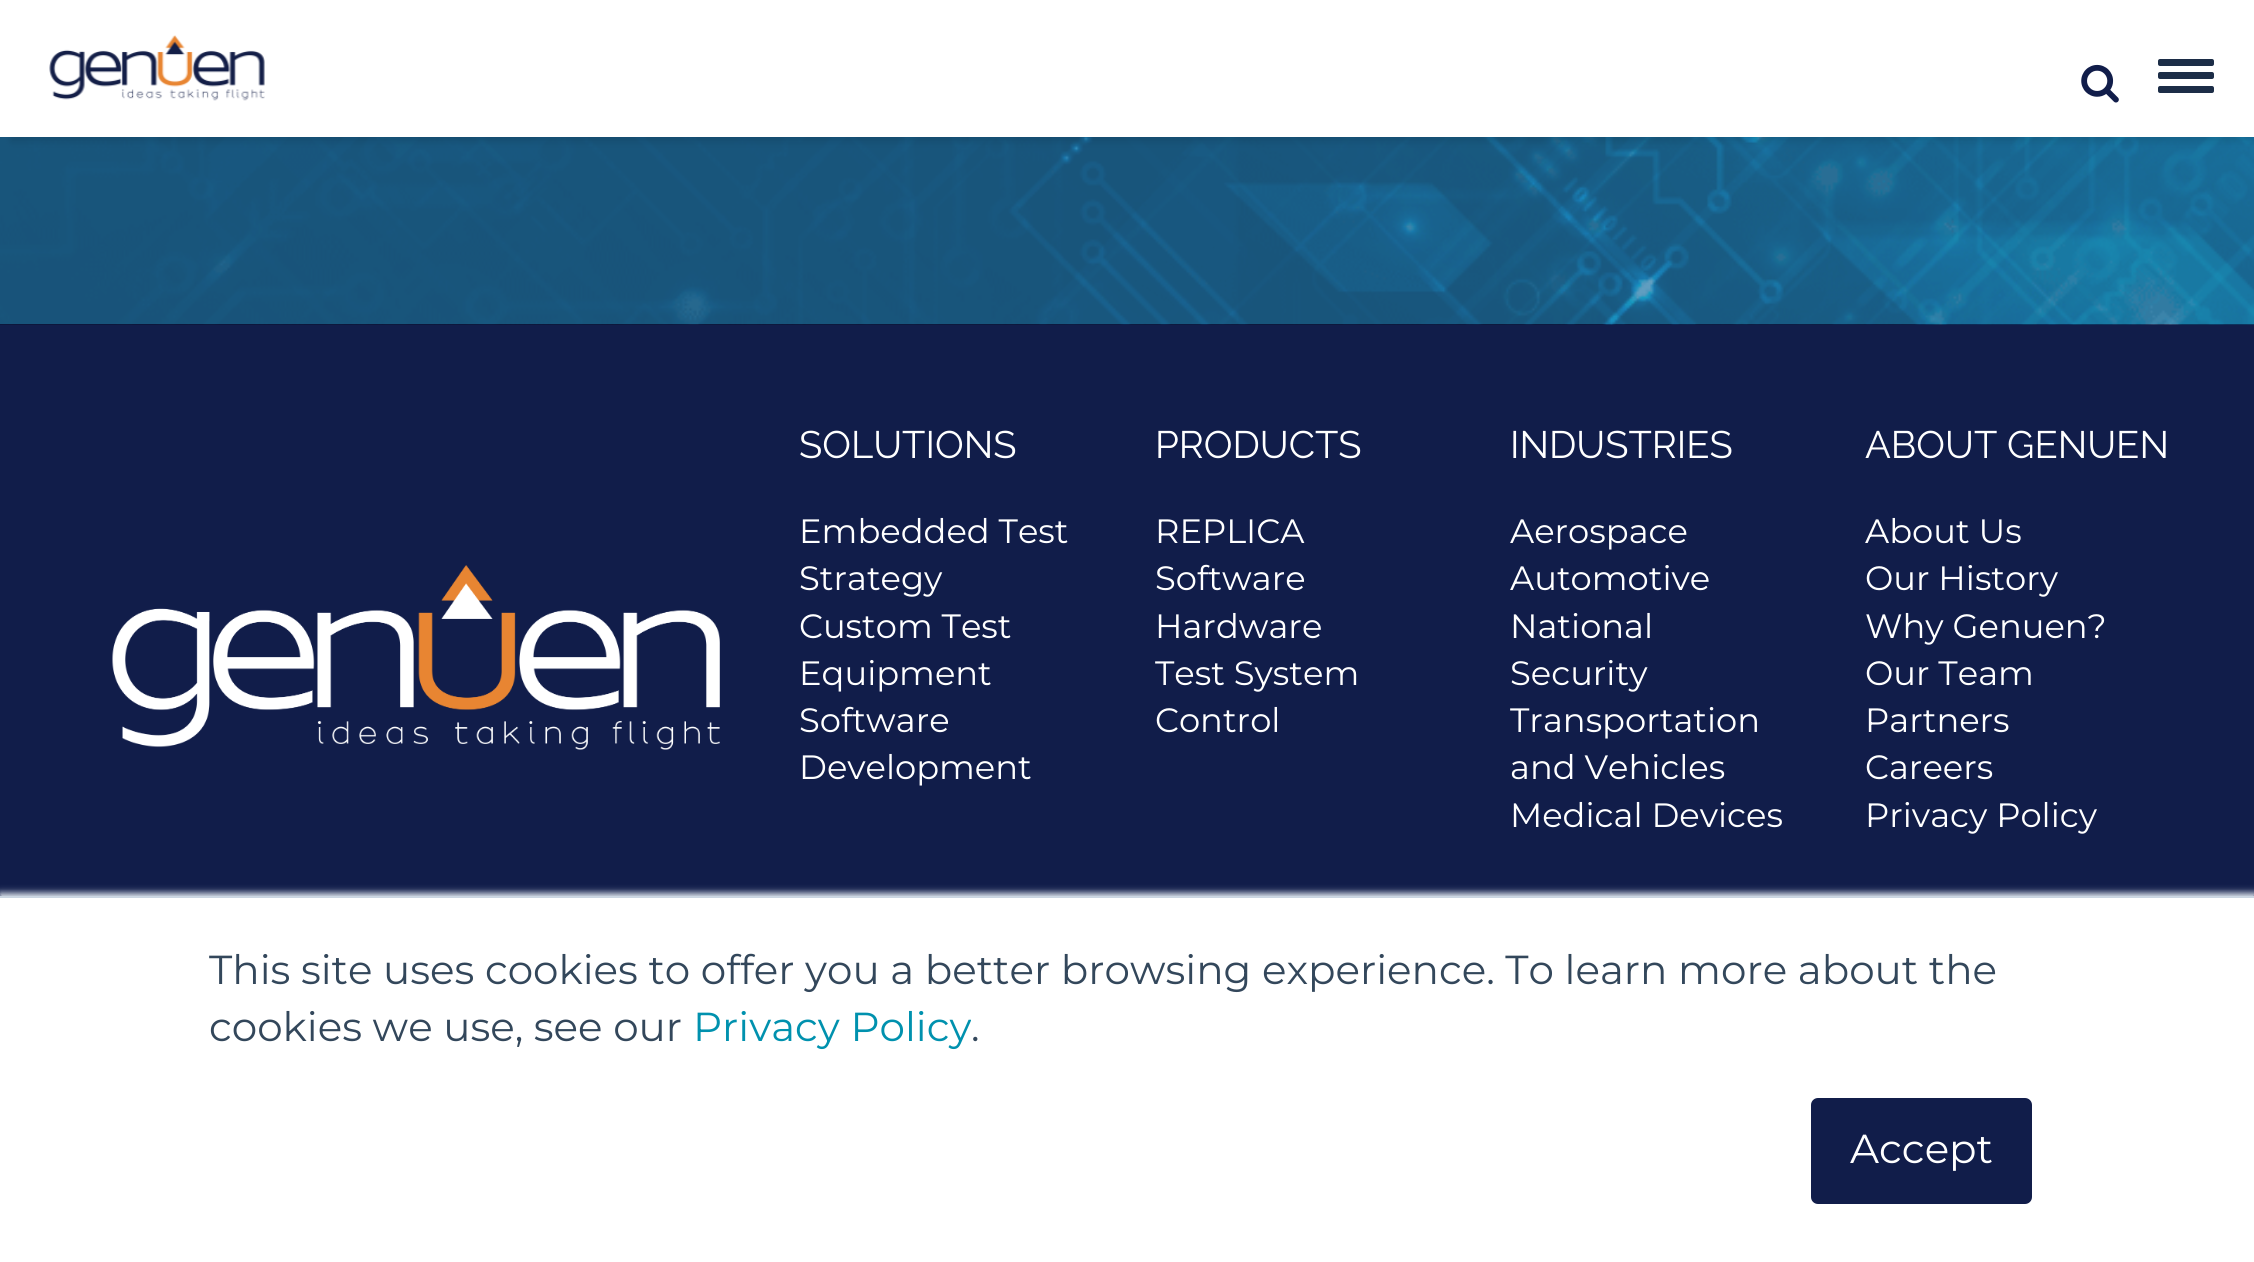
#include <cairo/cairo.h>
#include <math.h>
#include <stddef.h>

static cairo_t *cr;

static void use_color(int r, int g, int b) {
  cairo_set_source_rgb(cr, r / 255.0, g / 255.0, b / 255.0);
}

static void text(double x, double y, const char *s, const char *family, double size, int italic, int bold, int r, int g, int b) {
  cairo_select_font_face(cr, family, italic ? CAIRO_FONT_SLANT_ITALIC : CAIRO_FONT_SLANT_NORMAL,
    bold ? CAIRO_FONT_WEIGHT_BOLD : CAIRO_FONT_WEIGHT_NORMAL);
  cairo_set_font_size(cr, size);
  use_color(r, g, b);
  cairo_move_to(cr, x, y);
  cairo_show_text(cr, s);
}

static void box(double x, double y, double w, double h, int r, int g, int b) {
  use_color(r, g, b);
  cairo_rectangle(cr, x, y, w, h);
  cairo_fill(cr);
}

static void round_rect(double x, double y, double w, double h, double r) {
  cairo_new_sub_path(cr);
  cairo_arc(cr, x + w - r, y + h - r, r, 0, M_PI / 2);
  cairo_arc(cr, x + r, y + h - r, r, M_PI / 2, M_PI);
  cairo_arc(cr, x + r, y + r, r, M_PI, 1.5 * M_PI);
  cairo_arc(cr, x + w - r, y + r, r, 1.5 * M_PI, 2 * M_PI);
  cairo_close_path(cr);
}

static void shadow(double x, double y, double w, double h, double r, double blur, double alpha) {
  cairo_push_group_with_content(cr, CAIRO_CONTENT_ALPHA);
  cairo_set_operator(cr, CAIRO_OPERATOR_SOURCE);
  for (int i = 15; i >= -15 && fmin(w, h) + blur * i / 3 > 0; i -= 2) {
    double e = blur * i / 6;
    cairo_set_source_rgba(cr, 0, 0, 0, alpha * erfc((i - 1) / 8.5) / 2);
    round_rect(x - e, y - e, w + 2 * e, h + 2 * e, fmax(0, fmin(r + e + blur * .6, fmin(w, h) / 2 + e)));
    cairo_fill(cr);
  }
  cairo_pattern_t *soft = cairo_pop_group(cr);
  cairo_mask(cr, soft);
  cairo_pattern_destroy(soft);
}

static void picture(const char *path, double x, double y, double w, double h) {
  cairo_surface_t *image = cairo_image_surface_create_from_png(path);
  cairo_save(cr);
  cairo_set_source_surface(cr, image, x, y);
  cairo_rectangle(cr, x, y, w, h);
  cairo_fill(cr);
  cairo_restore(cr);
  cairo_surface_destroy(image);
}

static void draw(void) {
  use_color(17, 29, 74);
  cairo_paint(cr);
  picture("img_03.png", 0, 137, 2254, 188);
  use_color(0, 0, 0);
  shadow(11, 5, 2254, 137, 0, 3.5, 0.1);
  box(0, 0, 2254, 137, 255, 255, 255);
  picture("img_01.png", 49, 35, 216, 66);
  picture("img_02.png", 2081, 64, 38, 39);
  use_color(28, 45, 71);
  round_rect(2158, 72, 56, 7, 2);
  cairo_fill(cr);
  round_rect(2158, 59, 56, 7, 2);
  cairo_fill(cr);
  round_rect(2158, 86, 56, 7, 2);
  cairo_fill(cr);
  picture("img_04.png", 112, 565, 608, 185);
  use_color(234, 240, 246);
  shadow(0, 893, 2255, 367, 0, 3.5, 1);
  box(0, 898, 2254, 364, 255, 255, 255);
  box(0, 896, 2254, 2, 203, 214, 226);
  use_color(17, 29, 74);
  round_rect(1812, 1099, 219, 104, 6);
  cairo_fill_preserve(cr);
  cairo_stroke(cr);
  text(799, 458, "SOLUTIONS", "Raleway", 38.25, 0, 0, 255, 255, 255);
  text(799, 543, "Embedded Test", "Montserrat", 33.75, 0, 0, 255, 255, 255);
  text(799, 590, "Strategy", "Montserrat", 33.75, 0, 0, 255, 255, 255);
  text(799, 638, "Custom Test", "Montserrat", 33.75, 0, 0, 255, 255, 255);
  text(799, 685, "Equipment", "Montserrat", 33.75, 0, 0, 255, 255, 255);
  text(799, 732, "Software", "Montserrat", 33.75, 0, 0, 255, 255, 255);
  text(799, 779, "Development", "Montserrat", 33.75, 0, 0, 255, 255, 255);
  text(1155, 458, "PRODUCTS", "Raleway", 38.25, 0, 0, 255, 255, 255);
  text(1155, 543, "REPLICA", "Montserrat", 33.75, 0, 0, 255, 255, 255);
  text(1155, 590, "Software", "Montserrat", 33.75, 0, 0, 255, 255, 255);
  text(1155, 638, "Hardware", "Montserrat", 33.75, 0, 0, 255, 255, 255);
  text(1155, 685, "Test System", "Montserrat", 33.75, 0, 0, 255, 255, 255);
  text(1155, 732, "Control", "Montserrat", 33.75, 0, 0, 255, 255, 255);
  text(1510, 458, "INDUSTRIES", "Raleway", 38.25, 0, 0, 255, 255, 255);
  text(1510, 543, "Aerospace", "Montserrat", 33.75, 0, 0, 255, 255, 255);
  text(1510, 590, "Automotive", "Montserrat", 33.75, 0, 0, 255, 255, 255);
  text(1510, 638, "National", "Montserrat", 33.75, 0, 0, 255, 255, 255);
  text(1510, 685, "Security", "Montserrat", 33.75, 0, 0, 255, 255, 255);
  text(1510, 732, "Transportation", "Montserrat", 33.75, 0, 0, 255, 255, 255);
  text(1510, 779, "and Vehicles", "Montserrat", 33.75, 0, 0, 255, 255, 255);
  text(1510, 827, "Medical Devices", "Montserrat", 33.75, 0, 0, 255, 255, 255);
  text(1865, 458, "ABOUT GENUEN", "Raleway", 38.25, 0, 0, 255, 255, 255);
  text(1865, 543, "About Us", "Montserrat", 33.75, 0, 0, 255, 255, 255);
  text(1865, 590, "Our History", "Montserrat", 33.75, 0, 0, 255, 255, 255);
  text(1865, 638, "Why Genuen?", "Montserrat", 33.75, 0, 0, 255, 255, 255);
  text(1865, 685, "Our Team", "Montserrat", 33.75, 0, 0, 255, 255, 255);
  text(1865, 732, "Partners", "Montserrat", 33.75, 0, 0, 255, 255, 255);
  text(1865, 779, "Careers", "Montserrat", 33.75, 0, 0, 255, 255, 255);
  text(1865, 827, "Privacy Policy", "Montserrat", 33.75, 0, 0, 255, 255, 255);
  text(209, 984, "This site uses cookies to offer you a better browsing experience. To learn more about the", "Montserrat", 40.5, 0, 0, 51, 71, 91);
  text(209, 1041, "cookies we use, see our", "Montserrat", 40.5, 0, 0, 51, 71, 91);
  text(693, 1041, "Privacy Policy", "Montserrat", 40.5, 0, 0, 0, 145, 174);
  text(971, 1041, ".", "Montserrat", 40.5, 0, 0, 51, 71, 91);
  text(1850, 1163, "Accept", "Montserrat", 40.5, 0, 0, 255, 255, 255);
}

int main(void) {
  cairo_surface_t *surface = cairo_image_surface_create(CAIRO_FORMAT_RGB24, 2254, 1262);
  cr = cairo_create(surface);
  cairo_font_options_t *options = cairo_font_options_create();
  cairo_font_options_set_hint_metrics(options, CAIRO_HINT_METRICS_OFF);
  cairo_font_options_set_hint_style(options, CAIRO_HINT_STYLE_NONE);
  cairo_set_font_options(cr, options);
  cairo_set_miter_limit(cr, 4);
  draw();
  cairo_surface_write_to_png(surface, "out.png");
  cairo_font_options_destroy(options);
  cairo_destroy(cr);
  cairo_surface_destroy(surface);
  return 0;
}
